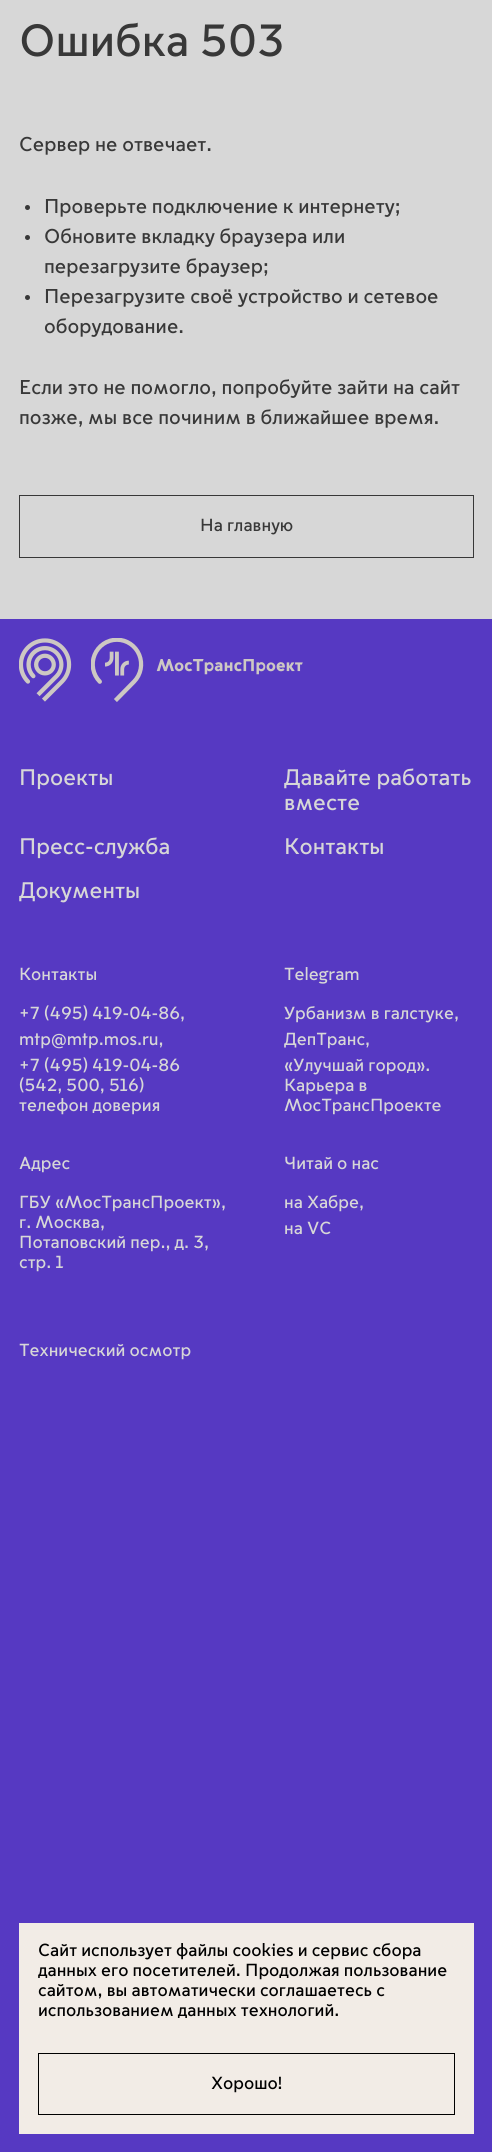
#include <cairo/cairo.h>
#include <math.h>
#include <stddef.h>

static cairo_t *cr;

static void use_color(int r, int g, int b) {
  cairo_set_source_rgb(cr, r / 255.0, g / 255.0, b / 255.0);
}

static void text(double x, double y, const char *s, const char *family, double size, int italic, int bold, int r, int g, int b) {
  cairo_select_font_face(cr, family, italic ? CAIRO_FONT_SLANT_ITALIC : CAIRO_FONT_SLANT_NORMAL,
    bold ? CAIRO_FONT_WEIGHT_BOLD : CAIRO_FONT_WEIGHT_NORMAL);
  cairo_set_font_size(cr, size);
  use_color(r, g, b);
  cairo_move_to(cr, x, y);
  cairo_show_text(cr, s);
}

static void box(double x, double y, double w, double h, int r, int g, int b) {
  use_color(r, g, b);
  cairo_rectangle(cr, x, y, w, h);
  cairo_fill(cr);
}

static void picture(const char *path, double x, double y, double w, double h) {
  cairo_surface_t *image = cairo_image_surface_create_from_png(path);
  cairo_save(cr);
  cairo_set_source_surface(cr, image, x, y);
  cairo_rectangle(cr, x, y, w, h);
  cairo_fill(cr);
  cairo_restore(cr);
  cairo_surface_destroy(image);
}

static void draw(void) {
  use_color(215, 215, 215);
  cairo_paint(cr);
  use_color(56, 56, 56);
  cairo_arc(cr, 27.5, 207.5, 2.5, 0, 2 * M_PI);
  cairo_fill(cr);
  cairo_arc(cr, 27.5, 237.5, 2.5, 0, 2 * M_PI);
  cairo_fill(cr);
  cairo_arc(cr, 27.5, 297.5, 2.5, 0, 2 * M_PI);
  cairo_fill(cr);
  cairo_rectangle(cr, 19.5, 495.5, 454, 62);
  cairo_set_line_width(cr, 1);
  cairo_stroke(cr);
  box(0, 619, 492, 1533, 86, 57, 194);
  picture("img_01.png", 19, 638, 284, 64);
  box(19, 1923, 455, 211, 242, 236, 230);
  cairo_rectangle(cr, 38.5, 2053.5, 416, 61);
  use_color(0, 0, 0);
  cairo_stroke(cr);
  text(19, 56, "Ошибка 503", "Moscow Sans", 45, 0, 0, 56, 56, 56);
  text(19, 151, "Сервер не отвечает.", "Moscow Sans", 20, 0, 0, 56, 56, 56);
  text(44, 213, "Проверьте подключение к интернету;", "Moscow Sans", 20, 0, 0, 56, 56, 56);
  text(44, 243, "Обновите вкладку браузера или", "Moscow Sans", 20, 0, 0, 56, 56, 56);
  text(44, 273, "перезагрузите браузер;", "Moscow Sans", 20, 0, 0, 56, 56, 56);
  text(44, 303, "Перезагрузите своё устройство и сетевое", "Moscow Sans", 20, 0, 0, 56, 56, 56);
  text(44, 333, "оборудование.", "Moscow Sans", 20, 0, 0, 56, 56, 56);
  text(19, 394, "Если это не помогло, попробуйте зайти на сайт", "Moscow Sans", 20, 0, 0, 56, 56, 56);
  text(19, 424, "позже, мы все починим в ближайшее время.", "Moscow Sans", 20, 0, 0, 56, 56, 56);
  text(200, 531, "На главную", "Moscow Sans", 17.5, 0, 0, 56, 56, 56);
  text(19, 785, "Проекты", "Moscow Sans", 22.5, 0, 0, 215, 215, 215);
  text(284, 785, "Давайте работать", "Moscow Sans", 22.5, 0, 0, 215, 215, 215);
  text(284, 810, "вместе", "Moscow Sans", 22.5, 0, 0, 215, 215, 215);
  text(19, 854, "Пресс-служба", "Moscow Sans", 22.5, 0, 0, 215, 215, 215);
  text(284, 854, "Контакты", "Moscow Sans", 22.5, 0, 0, 215, 215, 215);
  text(19, 898, "Документы", "Moscow Sans", 22.5, 0, 0, 215, 215, 215);
  text(19, 980, "Контакты", "Moscow Sans", 17.5, 0, 0, 215, 215, 215);
  text(19, 1019, "+7 (495) 419-04-86,", "Moscow Sans", 17.5, 0, 0, 215, 215, 215);
  text(19, 1045, "mtp@mtp.mos.ru,", "Moscow Sans", 17.5, 0, 0, 215, 215, 215);
  text(19, 1071, "+7 (495) 419-04-86", "Moscow Sans", 17.5, 0, 0, 215, 215, 215);
  text(19, 1091, "(542, 500, 516)", "Moscow Sans", 17.5, 0, 0, 215, 215, 215);
  text(19, 1111, "телефон доверия", "Moscow Sans", 17.5, 0, 0, 215, 215, 215);
  text(284, 980, "Telegram", "Moscow Sans", 17.5, 0, 0, 215, 215, 215);
  text(284, 1019, "Урбанизм в галстуке,", "Moscow Sans", 17.5, 0, 0, 215, 215, 215);
  text(284, 1045, "ДепТранс,", "Moscow Sans", 17.5, 0, 0, 215, 215, 215);
  text(284, 1071, "«Улучшай город».", "Moscow Sans", 17.5, 0, 0, 215, 215, 215);
  text(284, 1091, "Карьера в", "Moscow Sans", 17.5, 0, 0, 215, 215, 215);
  text(284, 1111, "МосТрансПроекте", "Moscow Sans", 17.5, 0, 0, 215, 215, 215);
  text(19, 1169, "Адрес", "Moscow Sans", 17.5, 0, 0, 215, 215, 215);
  text(19, 1208, "ГБУ «МосТрансПроект»,", "Moscow Sans", 17.5, 0, 0, 215, 215, 215);
  text(19, 1228, "г. Москва,", "Moscow Sans", 17.5, 0, 0, 215, 215, 215);
  text(19, 1248, "Потаповский пер., д. 3,", "Moscow Sans", 17.5, 0, 0, 215, 215, 215);
  text(19, 1268, "стр. 1", "Moscow Sans", 17.5, 0, 0, 215, 215, 215);
  text(284, 1169, "Читай о нас", "Moscow Sans", 17.5, 0, 0, 215, 215, 215);
  text(284, 1208, "на Хабре,", "Moscow Sans", 17.5, 0, 0, 215, 215, 215);
  text(284, 1234, "на VC", "Moscow Sans", 17.5, 0, 0, 215, 215, 215);
  text(19, 1356, "Технический осмотр", "Moscow Sans", 17.5, 0, 0, 215, 215, 215);
  text(38, 1956, "Сайт использует файлы cookies и сервис сбора", "Moscow Sans", 17.5, 0, 0, 0, 0, 0);
  text(38, 1976, "данных его посетителей. Продолжая пользование", "Moscow Sans", 17.5, 0, 0, 0, 0, 0);
  text(38, 1996, "сайтом, вы автоматически соглашаетесь с", "Moscow Sans", 17.5, 0, 0, 0, 0, 0);
  text(38, 2016, "использованием данных технологий.", "Moscow Sans", 17.5, 0, 0, 0, 0, 0);
  text(211, 2089, "Хорошо!", "Moscow Sans", 17.5, 0, 0, 0, 0, 0);
}

int main(void) {
  cairo_surface_t *surface = cairo_image_surface_create(CAIRO_FORMAT_RGB24, 492, 2152);
  cr = cairo_create(surface);
  cairo_font_options_t *options = cairo_font_options_create();
  cairo_font_options_set_hint_metrics(options, CAIRO_HINT_METRICS_OFF);
  cairo_font_options_set_hint_style(options, CAIRO_HINT_STYLE_NONE);
  cairo_set_font_options(cr, options);
  cairo_set_miter_limit(cr, 4);
  draw();
  cairo_surface_write_to_png(surface, "out.png");
  cairo_font_options_destroy(options);
  cairo_destroy(cr);
  cairo_surface_destroy(surface);
  return 0;
}
